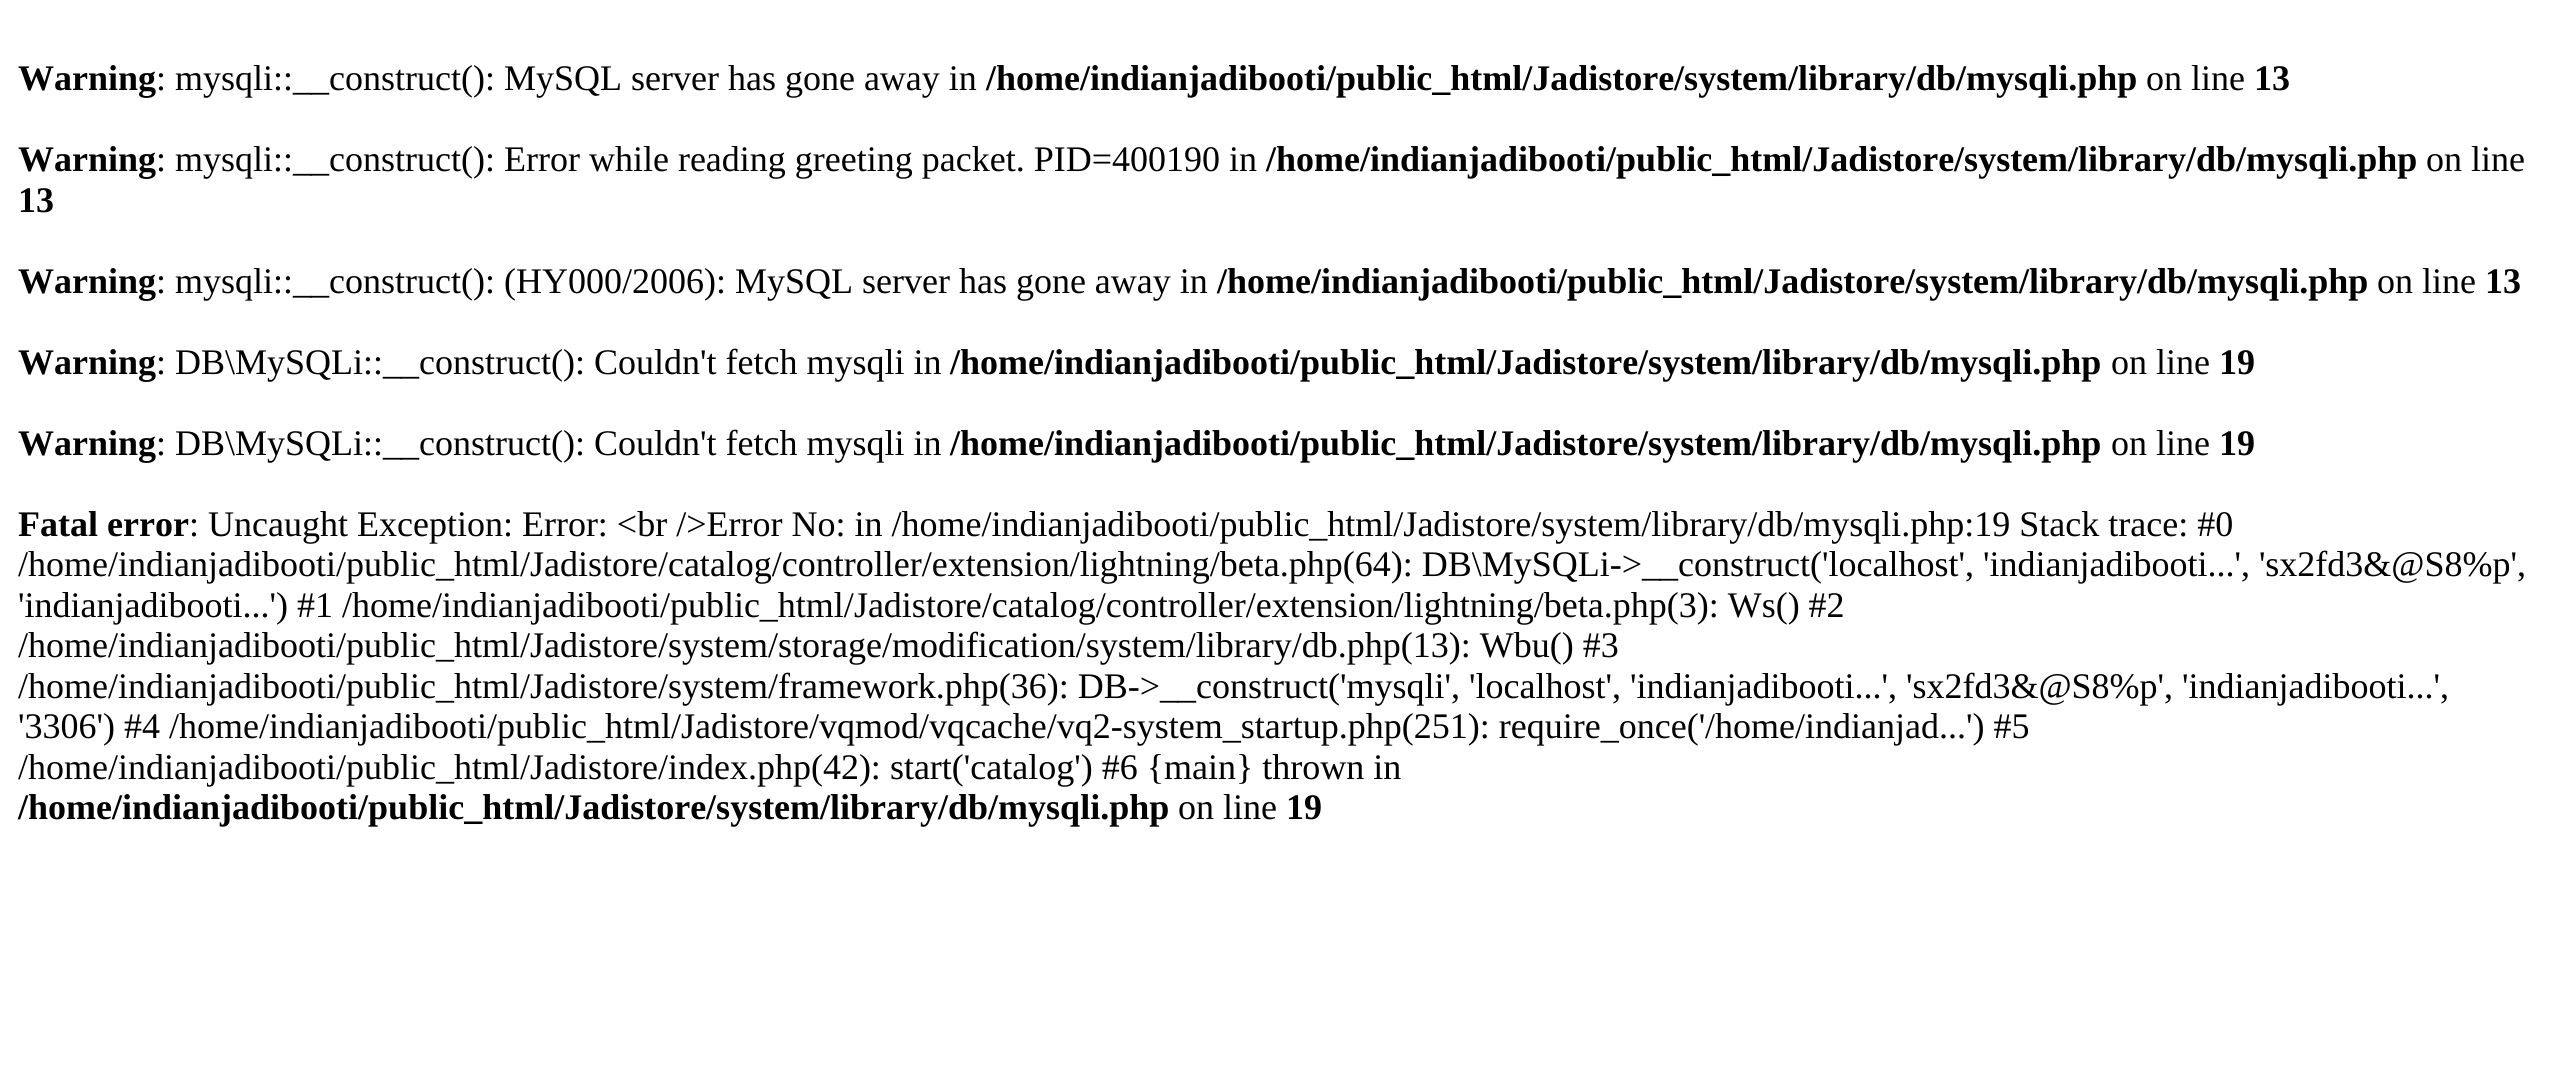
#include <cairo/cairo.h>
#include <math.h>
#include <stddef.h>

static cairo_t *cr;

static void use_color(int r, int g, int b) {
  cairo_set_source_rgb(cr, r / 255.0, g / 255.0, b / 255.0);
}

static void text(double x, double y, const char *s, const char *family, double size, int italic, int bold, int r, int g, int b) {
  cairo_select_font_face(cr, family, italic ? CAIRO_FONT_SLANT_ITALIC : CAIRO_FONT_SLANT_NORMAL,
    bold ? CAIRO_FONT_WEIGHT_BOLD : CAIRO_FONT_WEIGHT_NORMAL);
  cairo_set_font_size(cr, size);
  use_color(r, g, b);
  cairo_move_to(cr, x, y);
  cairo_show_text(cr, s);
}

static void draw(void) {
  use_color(255, 255, 255);
  cairo_paint(cr);
  text(18, 90, "Warning", "Liberation Serif", 36, 0, 1, 0, 0, 0);
  text(156, 90, ": mysqli::__construct(): MySQL server has gone away in", "Liberation Serif", 36, 0, 0, 0, 0, 0);
  text(986, 90, "/home/indianjadibooti/public_html/Jadistore/system/library/db/mysqli.php", "Liberation Serif", 36, 0, 1, 0, 0, 0);
  text(2146, 90, "on line", "Liberation Serif", 36, 0, 0, 0, 0, 0);
  text(2254, 90, "13", "Liberation Serif", 36, 0, 1, 0, 0, 0);
  text(18, 171, "Warning", "Liberation Serif", 36, 0, 1, 0, 0, 0);
  text(156, 171, ": mysqli::__construct(): Error while reading greeting packet. PID=400190 in", "Liberation Serif", 36, 0, 0, 0, 0, 0);
  text(1266, 171, "/home/indianjadibooti/public_html/Jadistore/system/library/db/mysqli.php", "Liberation Serif", 36, 0, 1, 0, 0, 0);
  text(2426, 171, "on line", "Liberation Serif", 36, 0, 0, 0, 0, 0);
  text(18, 212, "13", "Liberation Serif", 36, 0, 1, 0, 0, 0);
  text(18, 293, "Warning", "Liberation Serif", 36, 0, 1, 0, 0, 0);
  text(156, 293, ": mysqli::__construct(): (HY000/2006): MySQL server has gone away in", "Liberation Serif", 36, 0, 0, 0, 0, 0);
  text(1217, 293, "/home/indianjadibooti/public_html/Jadistore/system/library/db/mysqli.php", "Liberation Serif", 36, 0, 1, 0, 0, 0);
  text(2377, 293, "on line", "Liberation Serif", 36, 0, 0, 0, 0, 0);
  text(2485, 293, "13", "Liberation Serif", 36, 0, 1, 0, 0, 0);
  text(18, 374, "Warning", "Liberation Serif", 36, 0, 1, 0, 0, 0);
  text(156, 374, ": DB\\MySQLi::__construct(): Couldn't fetch mysqli in", "Liberation Serif", 36, 0, 0, 0, 0, 0);
  text(950, 374, "/home/indianjadibooti/public_html/Jadistore/system/library/db/mysqli.php", "Liberation Serif", 36, 0, 1, 0, 0, 0);
  text(2111, 374, "on line", "Liberation Serif", 36, 0, 0, 0, 0, 0);
  text(2219, 374, "19", "Liberation Serif", 36, 0, 1, 0, 0, 0);
  text(18, 455, "Warning", "Liberation Serif", 36, 0, 1, 0, 0, 0);
  text(156, 455, ": DB\\MySQLi::__construct(): Couldn't fetch mysqli in", "Liberation Serif", 36, 0, 0, 0, 0, 0);
  text(950, 455, "/home/indianjadibooti/public_html/Jadistore/system/library/db/mysqli.php", "Liberation Serif", 36, 0, 1, 0, 0, 0);
  text(2111, 455, "on line", "Liberation Serif", 36, 0, 0, 0, 0, 0);
  text(2219, 455, "19", "Liberation Serif", 36, 0, 1, 0, 0, 0);
  text(18, 536, "Fatal error", "Liberation Serif", 36, 0, 1, 0, 0, 0);
  text(189, 536, ": Uncaught Exception: Error: <br />Error No: in /home/indianjadibooti/public_html/Jadistore/system/library/db/mysqli.php:19 Stack trace: #0", "Liberation Serif", 36, 0, 0, 0, 0, 0);
  text(18, 576, "/home/indianjadibooti/public_html/Jadistore/catalog/controller/extension/lightning/beta.php(64): DB\\MySQLi->__construct('localhost', 'indianjadibooti...', 'sx2fd3&@S8%p',", "Liberation Serif", 36, 0, 0, 0, 0, 0);
  text(18, 617, "'indianjadibooti...') #1 /home/indianjadibooti/public_html/Jadistore/catalog/controller/extension/lightning/beta.php(3): Ws() #2", "Liberation Serif", 36, 0, 0, 0, 0, 0);
  text(18, 657, "/home/indianjadibooti/public_html/Jadistore/system/storage/modification/system/library/db.php(13): Wbu() #3", "Liberation Serif", 36, 0, 0, 0, 0, 0);
  text(18, 698, "/home/indianjadibooti/public_html/Jadistore/system/framework.php(36): DB->__construct('mysqli', 'localhost', 'indianjadibooti...', 'sx2fd3&@S8%p', 'indianjadibooti...',", "Liberation Serif", 36, 0, 0, 0, 0, 0);
  text(18, 738, "'3306') #4 /home/indianjadibooti/public_html/Jadistore/vqmod/vqcache/vq2-system_startup.php(251): require_once('/home/indianjad...') #5", "Liberation Serif", 36, 0, 0, 0, 0, 0);
  text(18, 779, "/home/indianjadibooti/public_html/Jadistore/index.php(42): start('catalog') #6 {main} thrown in", "Liberation Serif", 36, 0, 0, 0, 0, 0);
  text(18, 819, "/home/indianjadibooti/public_html/Jadistore/system/library/db/mysqli.php", "Liberation Serif", 36, 0, 1, 0, 0, 0);
  text(1178, 819, "on line", "Liberation Serif", 36, 0, 0, 0, 0, 0);
  text(1286, 819, "19", "Liberation Serif", 36, 0, 1, 0, 0, 0);
}

int main(void) {
  cairo_surface_t *surface = cairo_image_surface_create(CAIRO_FORMAT_RGB24, 2559, 1082);
  cr = cairo_create(surface);
  cairo_font_options_t *options = cairo_font_options_create();
  cairo_font_options_set_hint_metrics(options, CAIRO_HINT_METRICS_OFF);
  cairo_font_options_set_hint_style(options, CAIRO_HINT_STYLE_NONE);
  cairo_set_font_options(cr, options);
  cairo_set_miter_limit(cr, 4);
  draw();
  cairo_surface_write_to_png(surface, "out.png");
  cairo_font_options_destroy(options);
  cairo_destroy(cr);
  cairo_surface_destroy(surface);
  return 0;
}
